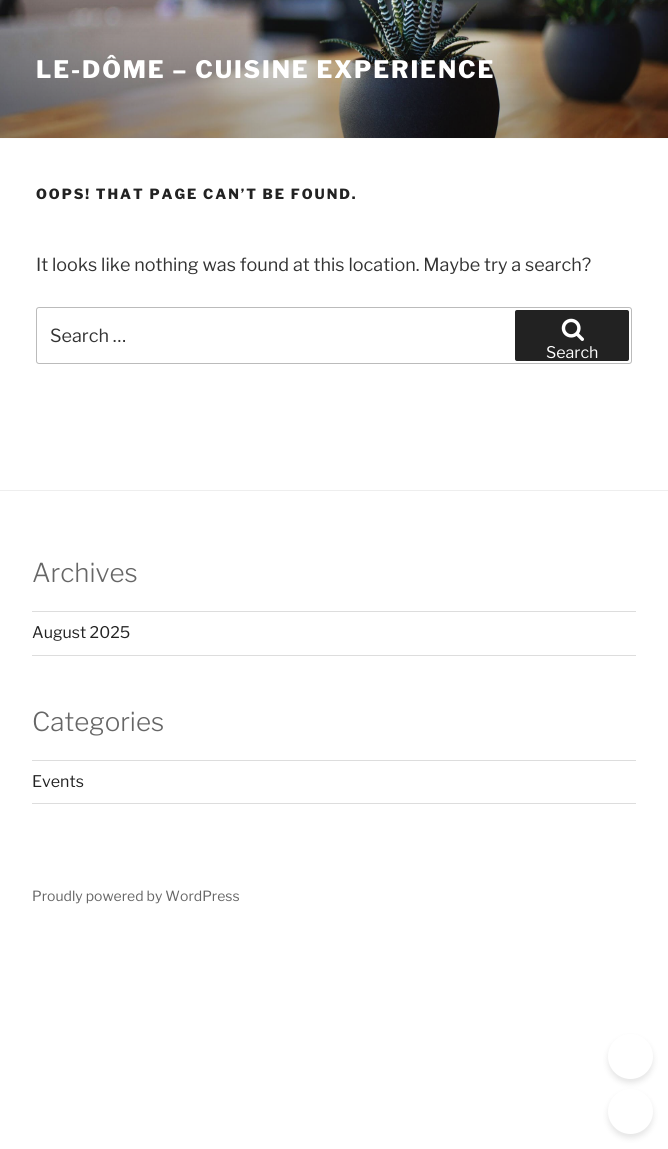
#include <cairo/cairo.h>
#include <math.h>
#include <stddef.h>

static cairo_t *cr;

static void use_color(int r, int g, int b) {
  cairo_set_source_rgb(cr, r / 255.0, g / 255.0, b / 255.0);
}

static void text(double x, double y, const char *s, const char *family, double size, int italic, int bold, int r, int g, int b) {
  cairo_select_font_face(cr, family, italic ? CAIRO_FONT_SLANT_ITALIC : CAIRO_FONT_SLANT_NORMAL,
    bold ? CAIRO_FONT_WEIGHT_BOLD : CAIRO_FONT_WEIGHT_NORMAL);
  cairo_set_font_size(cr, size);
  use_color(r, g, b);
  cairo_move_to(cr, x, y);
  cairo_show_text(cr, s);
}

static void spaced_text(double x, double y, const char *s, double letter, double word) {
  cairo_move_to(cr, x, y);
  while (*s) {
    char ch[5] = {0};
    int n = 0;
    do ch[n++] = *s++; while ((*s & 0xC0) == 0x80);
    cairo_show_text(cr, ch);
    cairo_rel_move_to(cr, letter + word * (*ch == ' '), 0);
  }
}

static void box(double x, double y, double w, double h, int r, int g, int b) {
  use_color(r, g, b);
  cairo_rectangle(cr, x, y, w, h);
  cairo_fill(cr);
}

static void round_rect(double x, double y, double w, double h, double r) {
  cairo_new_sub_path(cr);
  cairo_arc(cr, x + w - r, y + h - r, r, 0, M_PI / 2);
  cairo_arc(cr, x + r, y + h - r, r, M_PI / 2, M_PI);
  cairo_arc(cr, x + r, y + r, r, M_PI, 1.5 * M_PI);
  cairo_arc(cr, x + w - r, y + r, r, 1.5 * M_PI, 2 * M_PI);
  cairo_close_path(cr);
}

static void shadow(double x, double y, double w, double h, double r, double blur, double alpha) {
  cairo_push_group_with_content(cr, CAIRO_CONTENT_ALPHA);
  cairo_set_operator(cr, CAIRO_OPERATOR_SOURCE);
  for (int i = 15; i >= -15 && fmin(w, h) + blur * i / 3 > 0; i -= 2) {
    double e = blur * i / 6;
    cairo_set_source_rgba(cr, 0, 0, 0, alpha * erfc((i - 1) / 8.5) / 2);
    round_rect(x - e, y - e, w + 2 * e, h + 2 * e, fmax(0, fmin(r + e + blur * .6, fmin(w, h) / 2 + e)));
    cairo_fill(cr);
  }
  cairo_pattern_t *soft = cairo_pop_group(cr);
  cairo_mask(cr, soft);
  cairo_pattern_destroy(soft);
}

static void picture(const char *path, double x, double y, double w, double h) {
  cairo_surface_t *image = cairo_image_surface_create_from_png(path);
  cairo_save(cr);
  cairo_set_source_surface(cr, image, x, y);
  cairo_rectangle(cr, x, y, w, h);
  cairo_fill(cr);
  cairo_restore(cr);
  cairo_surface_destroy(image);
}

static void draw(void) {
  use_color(255, 255, 255);
  cairo_paint(cr);
  box(0, 138, 668, 1, 250, 250, 250);
  picture("img_01.png", 0, 0, 668, 138);
  round_rect(36.5, 307.5, 595, 56, 2.5);
  use_color(187, 187, 187);
  cairo_set_line_width(cr, 1);
  cairo_stroke(cr);
  use_color(34, 34, 34);
  round_rect(515, 310, 114, 51, 2);
  cairo_fill(cr);
  picture("img_02.png", 561, 318, 23, 23);
  box(0, 490, 668, 1, 238, 238, 238);
  box(32, 611, 604, 1, 221, 221, 221);
  box(32, 655, 604, 1, 221, 221, 221);
  box(32, 760, 604, 1, 221, 221, 221);
  box(32, 803, 604, 1, 221, 221, 221);
  use_color(0, 0, 0);
  shadow(608, 1038, 45, 45, 22.5, 3, 0.1);
  use_color(255, 255, 255);
  cairo_arc(cr, 630.5, 1056.5, 22.5, 0, 2 * M_PI);
  cairo_fill(cr);
  use_color(0, 0, 0);
  shadow(608, 1093, 45, 45, 22.5, 3, 0.1);
  use_color(255, 255, 255);
  cairo_arc(cr, 630.5, 1111.5, 22.5, 0, 2 * M_PI);
  cairo_fill(cr);
  cairo_select_font_face(cr, "Libre Franklin Thin", CAIRO_FONT_SLANT_NORMAL, CAIRO_FONT_WEIGHT_NORMAL);
  cairo_set_font_size(cr, 24);
  spaced_text(36, 78, "LE-DÔME – CUISINE EXPERIENCE", 1.9, 0);
  cairo_set_font_size(cr, 14);
  use_color(34, 34, 34);
  spaced_text(36, 199, "OOPS! THAT PAGE CAN’T BE FOUND.", 1.95, 0);
  text(36, 271, "It looks like nothing was found at this location. Maybe try a search?", "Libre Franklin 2 Thin", 18, 0, 0, 51, 51, 51);
  text(50, 342, "Search …", "Libre Franklin 2 Thin", 18, 0, 0, 51, 51, 51);
  text(546, 358, "Search", "Libre Franklin 2 Thin", 16, 0, 0, 255, 255, 255);
  text(32, 582, "Archives", "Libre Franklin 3 Thin", 26, 0, 0, 102, 102, 102);
  text(32, 638, "August 2025", "Libre Franklin 2 Thin", 16, 0, 0, 34, 34, 34);
  text(32, 731, "Categories", "Libre Franklin 3 Thin", 26, 0, 0, 102, 102, 102);
  text(32, 787, "Events", "Libre Franklin 2 Thin", 16, 0, 0, 34, 34, 34);
  text(32, 901, "Proudly powered by WordPress", "Libre Franklin 2 Thin", 14, 0, 0, 102, 102, 102);
}

int main(void) {
  cairo_surface_t *surface = cairo_image_surface_create(CAIRO_FORMAT_RGB24, 668, 1149);
  cr = cairo_create(surface);
  cairo_font_options_t *options = cairo_font_options_create();
  cairo_font_options_set_hint_metrics(options, CAIRO_HINT_METRICS_OFF);
  cairo_font_options_set_hint_style(options, CAIRO_HINT_STYLE_NONE);
  cairo_set_font_options(cr, options);
  cairo_set_miter_limit(cr, 4);
  draw();
  cairo_surface_write_to_png(surface, "out.png");
  cairo_font_options_destroy(options);
  cairo_destroy(cr);
  cairo_surface_destroy(surface);
  return 0;
}
